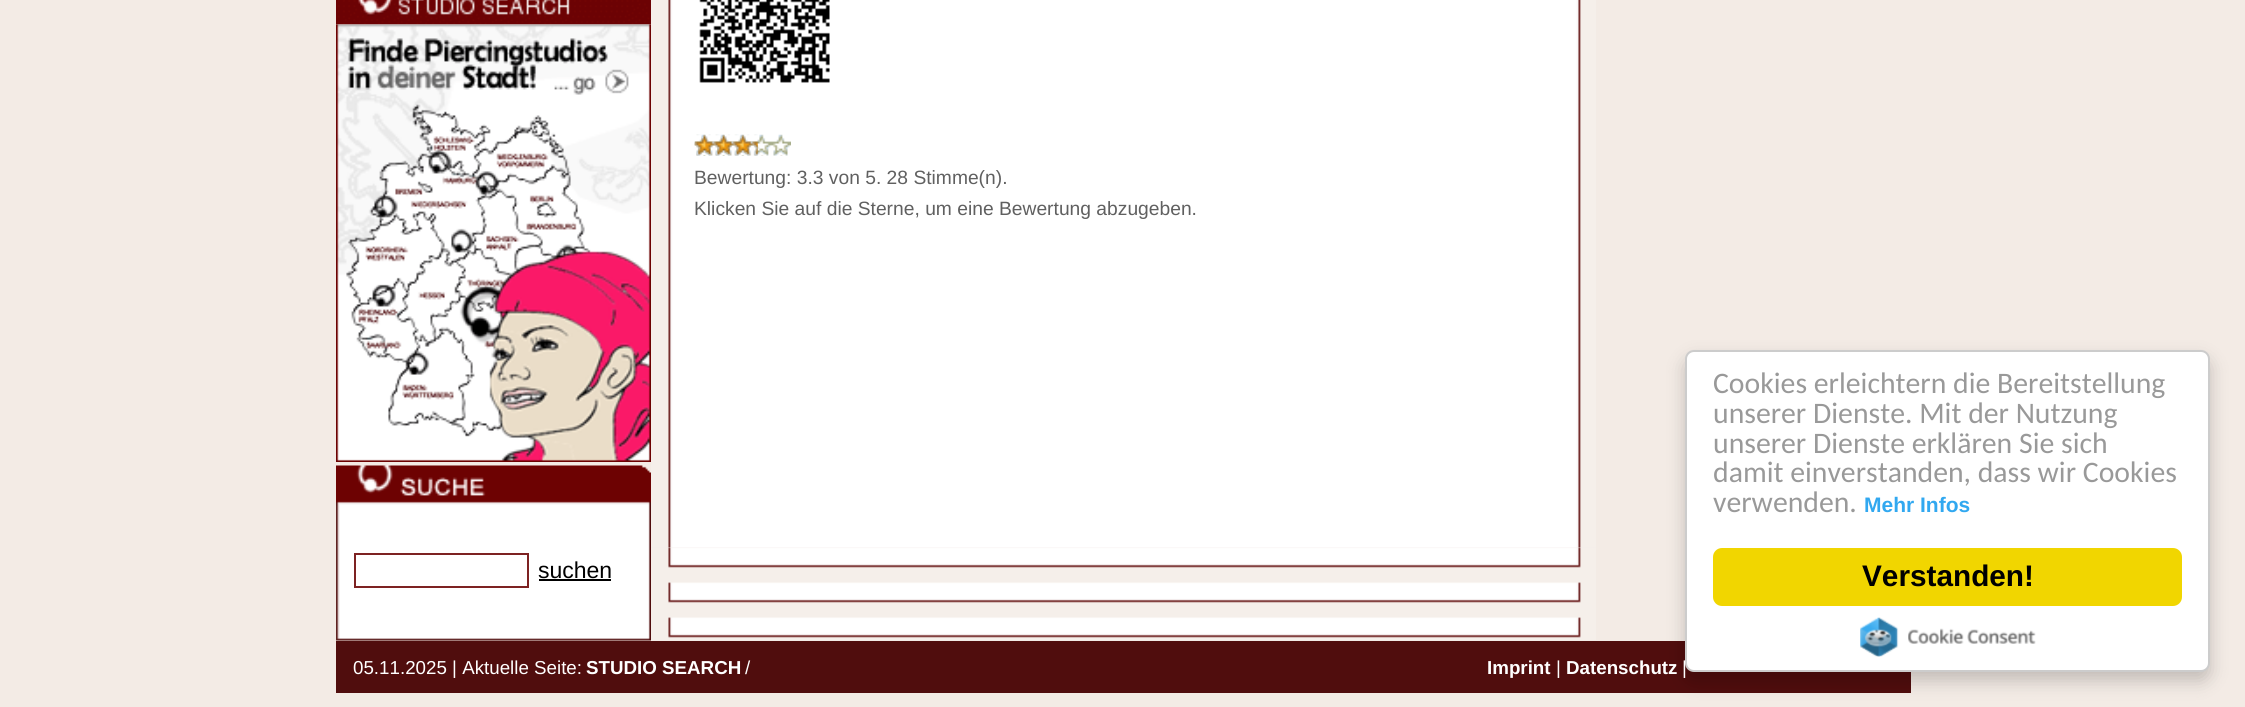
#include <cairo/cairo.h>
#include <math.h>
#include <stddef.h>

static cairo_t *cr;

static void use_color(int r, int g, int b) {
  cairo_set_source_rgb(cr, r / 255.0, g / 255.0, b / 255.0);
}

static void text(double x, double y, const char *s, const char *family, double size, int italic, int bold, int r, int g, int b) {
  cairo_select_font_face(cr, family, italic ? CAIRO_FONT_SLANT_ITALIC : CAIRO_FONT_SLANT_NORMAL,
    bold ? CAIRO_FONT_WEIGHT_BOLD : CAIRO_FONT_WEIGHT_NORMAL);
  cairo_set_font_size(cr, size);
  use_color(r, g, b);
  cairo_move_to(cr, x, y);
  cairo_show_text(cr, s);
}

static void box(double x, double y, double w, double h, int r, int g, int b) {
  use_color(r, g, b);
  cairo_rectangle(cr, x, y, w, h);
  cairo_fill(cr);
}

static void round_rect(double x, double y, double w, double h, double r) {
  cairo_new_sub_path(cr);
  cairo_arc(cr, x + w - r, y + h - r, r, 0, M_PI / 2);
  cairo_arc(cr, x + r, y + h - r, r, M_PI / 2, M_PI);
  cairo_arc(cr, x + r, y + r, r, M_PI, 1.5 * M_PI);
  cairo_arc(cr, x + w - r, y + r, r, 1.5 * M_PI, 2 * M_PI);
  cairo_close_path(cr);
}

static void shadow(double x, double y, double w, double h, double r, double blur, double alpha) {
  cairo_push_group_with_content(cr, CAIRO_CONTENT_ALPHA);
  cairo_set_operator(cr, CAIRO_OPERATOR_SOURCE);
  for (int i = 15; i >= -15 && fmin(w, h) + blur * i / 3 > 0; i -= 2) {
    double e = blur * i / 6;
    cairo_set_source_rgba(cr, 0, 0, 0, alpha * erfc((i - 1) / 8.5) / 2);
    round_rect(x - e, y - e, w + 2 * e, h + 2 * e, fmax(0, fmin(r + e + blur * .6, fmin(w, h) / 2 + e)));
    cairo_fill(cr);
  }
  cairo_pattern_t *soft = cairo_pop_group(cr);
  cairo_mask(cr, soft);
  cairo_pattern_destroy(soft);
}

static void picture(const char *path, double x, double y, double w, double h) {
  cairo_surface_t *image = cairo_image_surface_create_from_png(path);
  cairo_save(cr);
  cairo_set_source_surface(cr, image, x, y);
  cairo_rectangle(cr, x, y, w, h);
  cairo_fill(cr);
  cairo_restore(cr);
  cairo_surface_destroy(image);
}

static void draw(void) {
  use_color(243, 235, 229);
  cairo_paint(cr);
  picture("img_01.png", 651, 0, 945, 548);
  picture("img_02.png", 699, 0, 131, 83);
  picture("img_03.png", 694, 134, 97, 22);
  picture("img_04.png", 694, 134, 64, 22);
  picture("img_05.png", 336, 0, 315, 25);
  picture("img_06.png", 336, 24, 315, 438);
  picture("img_07.png", 336, 465, 315, 176);
  cairo_rectangle(cr, 355, 554, 173, 33);
  use_color(125, 34, 34);
  cairo_stroke(cr);
  box(539, 579, 72, 2, 0, 0, 0);
  picture("img_08.png", 651, 547, 945, 93);
  box(336, 641, 1575, 52, 80, 13, 13);
  use_color(0, 0, 0);
  shadow(1685, 359, 525, 322, 9, 9, 0.2);
  use_color(255, 255, 255);
  round_rect(1686, 351, 523, 320, 8);
  cairo_fill_preserve(cr);
  use_color(204, 204, 204);
  cairo_stroke(cr);
  use_color(241, 214, 0);
  round_rect(1713, 548, 469, 58, 9);
  cairo_fill(cr);
  picture("img_09.png", 1860, 617, 176, 40);
  text(694, 184, "Bewertung: 3.3 von 5. 28 Stimme(n).", "Liberation Sans", 19.25, 0, 0, 96, 96, 96);
  text(694, 215, "Klicken Sie auf die Sterne, um eine Bewertung abzugeben.", "Liberation Sans", 19.25, 0, 0, 96, 96, 96);
  text(538, 578, "suchen", "Liberation Sans", 23, 0, 0, 0, 0, 0);
  text(353, 674, "05.11.2025 | Aktuelle Seite:", "Liberation Sans", 18.75, 0, 0, 255, 255, 255);
  text(586, 674, "STUDIO SEARCH", "Liberation Sans", 18.75, 0, 1, 255, 255, 255);
  text(745, 674, "/", "Liberation Sans", 18.75, 0, 0, 255, 255, 255);
  text(1487, 674, "Imprint", "Liberation Sans", 18.75, 0, 1, 255, 255, 255);
  text(1556, 674, "|", "Liberation Sans", 18.75, 0, 0, 255, 255, 255);
  text(1566, 674, "Datenschutz", "Liberation Sans", 18.75, 0, 1, 255, 255, 255);
  text(1682, 674, "|", "Liberation Sans", 18.75, 0, 0, 255, 255, 255);
  text(1713, 393, "Cookies erleichtern die Bereitstellung", "Carlito", 29.75, 0, 0, 153, 153, 153);
  text(1713, 423, "unserer Dienste. Mit der Nutzung", "Carlito", 29.75, 0, 0, 153, 153, 153);
  text(1713, 453, "unserer Dienste erklären Sie sich", "Carlito", 29.75, 0, 0, 153, 153, 153);
  text(1713, 482, "damit einverstanden, dass wir Cookies", "Carlito", 29.75, 0, 0, 153, 153, 153);
  text(1713, 512, "verwenden.", "Carlito", 29.75, 0, 0, 153, 153, 153);
  text(1864, 512, "Mehr Infos", "Liberation Sans", 21, 0, 1, 49, 168, 240);
  text(1862, 586, "Verstanden!", "Liberation Sans", 29.75, 0, 1, 0, 0, 0);
}

int main(void) {
  cairo_surface_t *surface = cairo_image_surface_create(CAIRO_FORMAT_RGB24, 2245, 707);
  cr = cairo_create(surface);
  cairo_font_options_t *options = cairo_font_options_create();
  cairo_font_options_set_hint_metrics(options, CAIRO_HINT_METRICS_OFF);
  cairo_font_options_set_hint_style(options, CAIRO_HINT_STYLE_NONE);
  cairo_set_font_options(cr, options);
  cairo_set_miter_limit(cr, 4);
  draw();
  cairo_surface_write_to_png(surface, "out.png");
  cairo_font_options_destroy(options);
  cairo_destroy(cr);
  cairo_surface_destroy(surface);
  return 0;
}
